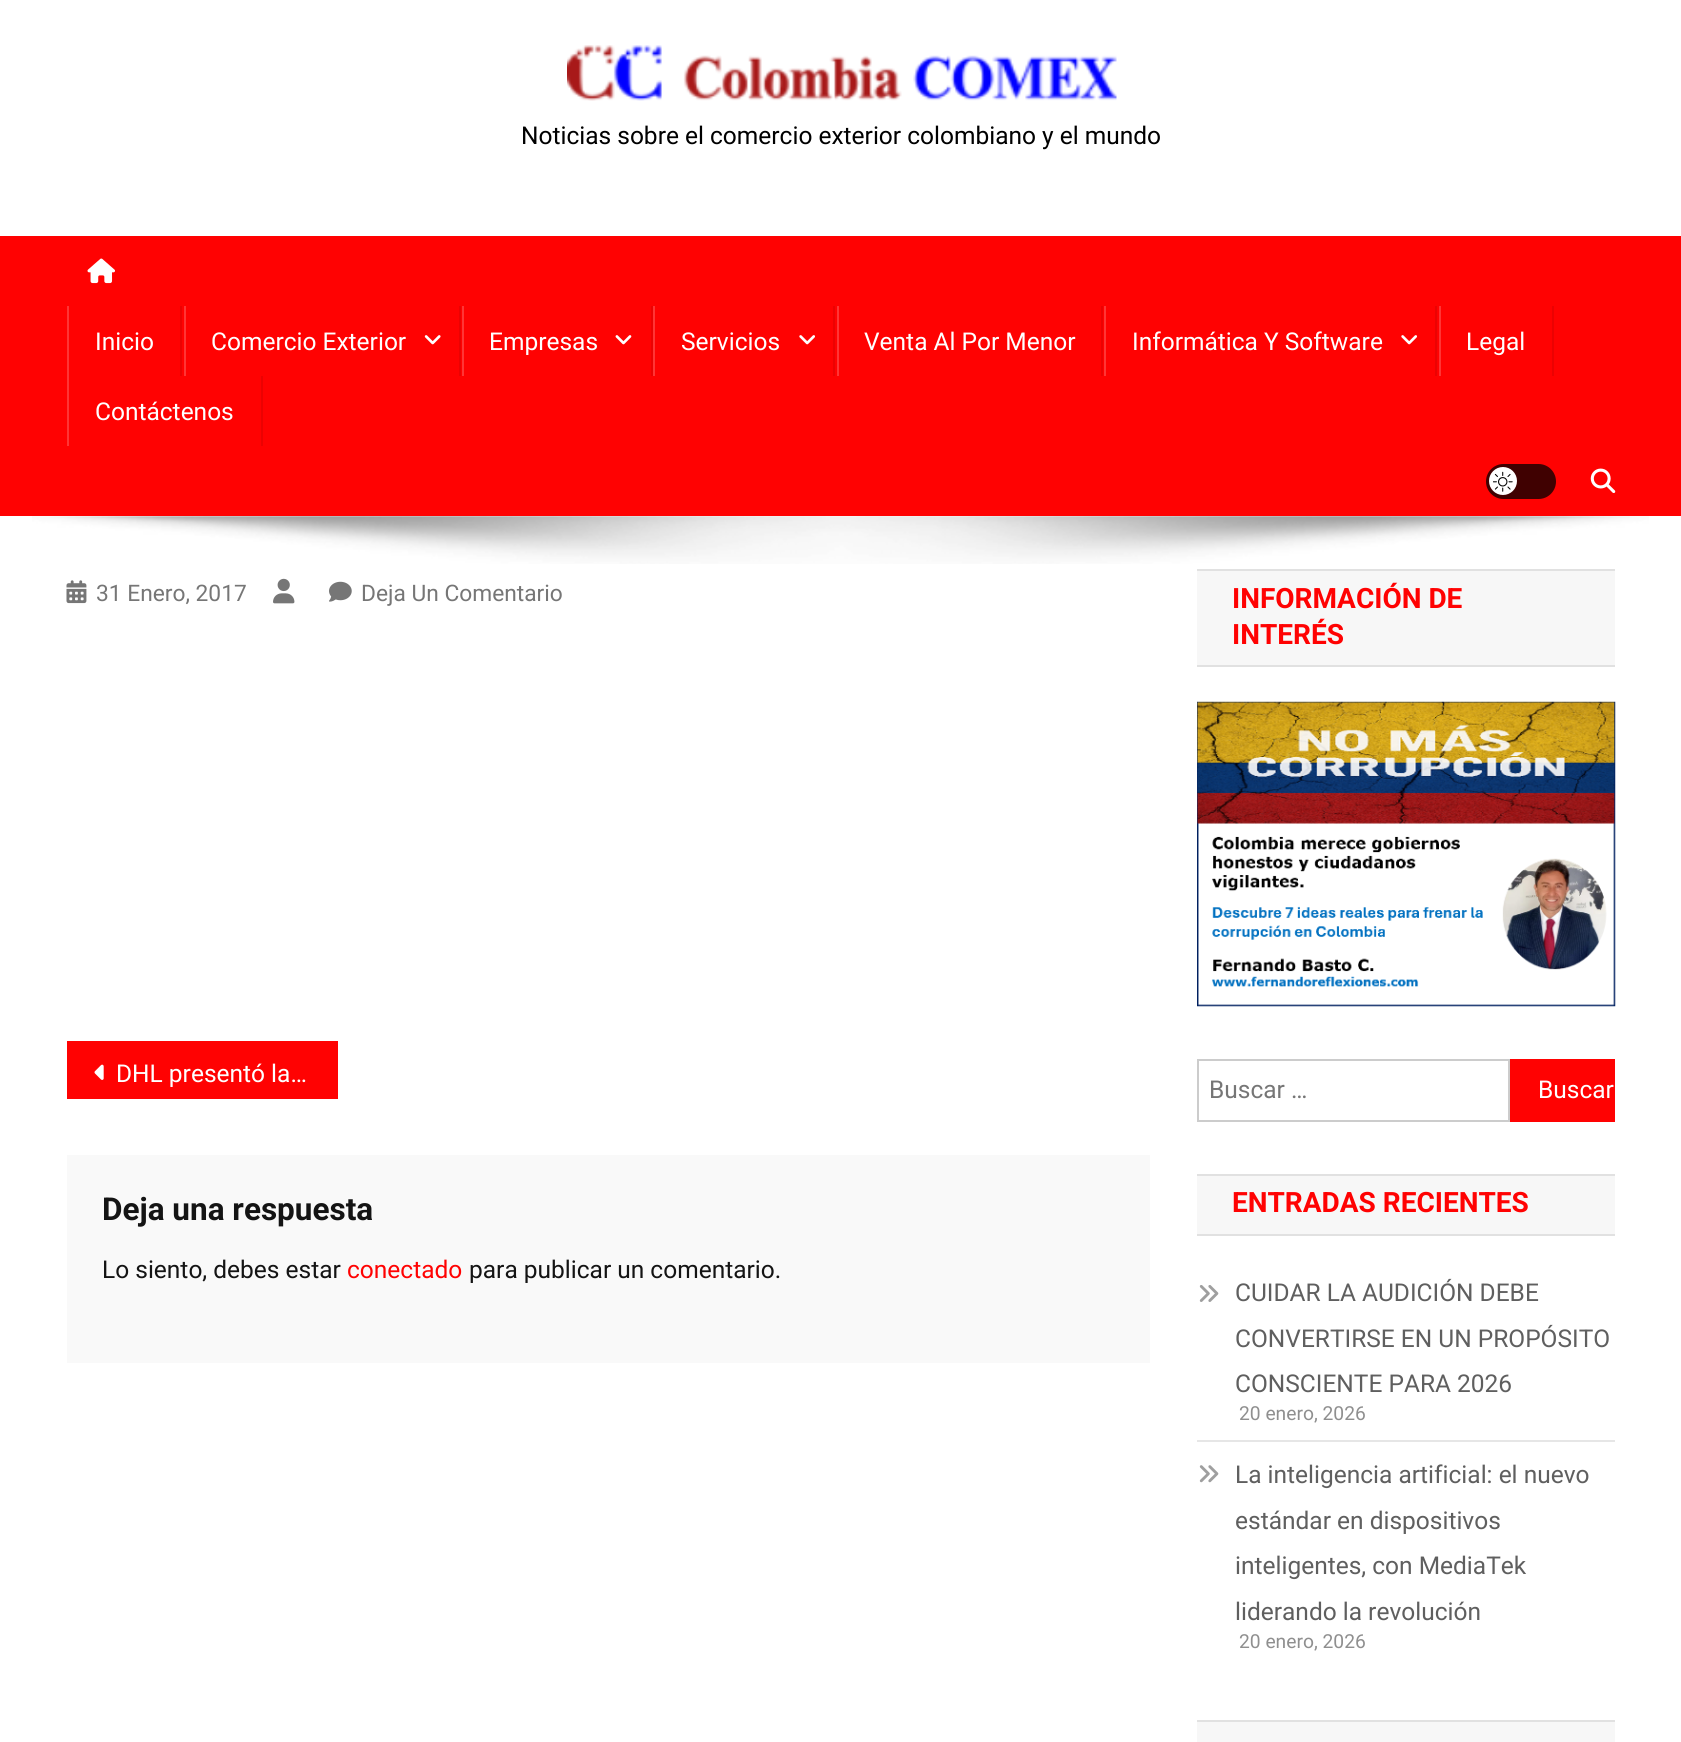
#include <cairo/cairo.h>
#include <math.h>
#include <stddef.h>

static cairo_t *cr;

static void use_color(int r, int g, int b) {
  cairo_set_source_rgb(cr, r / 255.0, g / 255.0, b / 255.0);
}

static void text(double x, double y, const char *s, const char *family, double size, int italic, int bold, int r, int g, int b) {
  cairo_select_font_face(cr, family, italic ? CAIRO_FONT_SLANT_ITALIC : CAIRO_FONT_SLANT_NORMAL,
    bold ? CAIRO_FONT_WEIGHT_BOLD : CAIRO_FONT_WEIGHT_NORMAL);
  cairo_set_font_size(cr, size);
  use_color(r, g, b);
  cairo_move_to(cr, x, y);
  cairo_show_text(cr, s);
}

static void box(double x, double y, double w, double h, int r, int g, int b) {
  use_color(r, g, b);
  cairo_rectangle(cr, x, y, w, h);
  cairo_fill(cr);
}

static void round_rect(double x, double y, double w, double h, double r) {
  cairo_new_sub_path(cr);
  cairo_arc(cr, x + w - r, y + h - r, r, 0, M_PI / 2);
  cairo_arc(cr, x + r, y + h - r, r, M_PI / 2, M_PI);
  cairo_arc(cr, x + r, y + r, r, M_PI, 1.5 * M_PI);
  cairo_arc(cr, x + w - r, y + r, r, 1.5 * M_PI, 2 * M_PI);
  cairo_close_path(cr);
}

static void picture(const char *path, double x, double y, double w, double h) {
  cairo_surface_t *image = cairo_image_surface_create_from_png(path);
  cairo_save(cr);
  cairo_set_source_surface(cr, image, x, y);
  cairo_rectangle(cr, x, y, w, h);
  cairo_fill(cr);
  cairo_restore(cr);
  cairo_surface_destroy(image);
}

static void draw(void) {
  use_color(255, 255, 255);
  cairo_paint(cr);
  picture("img_01.png", 567, 45, 550, 56);
  box(0, 236, 1681, 280, 255, 2, 2);
  picture("img_02.png", 87, 258, 28, 26);
  box(180, 306, 2, 70, 235, 2, 2);
  box(67, 306, 2, 140, 255, 53, 53);
  box(459, 306, 2, 70, 235, 2, 2);
  box(184, 306, 2, 70, 255, 53, 53);
  picture("img_03.png", 424, 335, 17, 10);
  box(651, 306, 2, 70, 235, 2, 2);
  box(462, 306, 2, 70, 255, 53, 53);
  picture("img_04.png", 615, 335, 17, 10);
  box(833, 306, 2, 70, 235, 2, 2);
  box(653, 306, 2, 70, 255, 53, 53);
  picture("img_05.png", 799, 335, 16, 10);
  box(1101, 306, 2, 70, 235, 2, 2);
  box(837, 306, 2, 70, 255, 53, 53);
  box(1435, 306, 2, 70, 235, 2, 2);
  box(1104, 306, 2, 70, 255, 53, 53);
  picture("img_05.png", 1401, 335, 16, 10);
  box(1552, 306, 2, 70, 235, 2, 2);
  box(1439, 306, 2, 70, 255, 53, 53);
  box(261, 376, 2, 70, 235, 2, 2);
  use_color(64, 1, 1);
  round_rect(1486, 464, 70, 35, 17.5);
  cairo_fill(cr);
  use_color(255, 255, 255);
  cairo_arc(cr, 1503, 481, 14, 0, 2 * M_PI);
  cairo_fill(cr);
  picture("img_06.png", 1493, 471, 20, 21);
  picture("img_07.png", 1590, 468, 26, 25);
  picture("img_08.png", 32, 516, 1617, 48);
  picture("img_09.png", 66, 580, 21, 24);
  picture("img_10.png", 273, 578, 22, 26);
  picture("img_11.png", 329, 581, 23, 21);
  box(67, 1041, 271, 58, 255, 2, 2);
  picture("img_12.png", 94, 1064, 10, 16);
  box(67, 1155, 1083, 208, 249, 249, 249);
  box(1197, 571, 418, 94, 247, 247, 247);
  box(1197, 569, 418, 2, 225, 225, 225);
  box(1197, 665, 418, 2, 225, 225, 225);
  picture("img_13.png", 1197, 701, 419, 306);
  cairo_rectangle(cr, 1198, 1060, 311, 61);
  use_color(204, 204, 204);
  cairo_stroke(cr);
  box(1510, 1059, 105, 63, 255, 2, 2);
  box(1197, 1176, 418, 58, 247, 247, 247);
  box(1197, 1174, 418, 2, 225, 225, 225);
  box(1197, 1234, 418, 2, 225, 225, 225);
  box(1197, 1440, 418, 2, 230, 230, 230);
  picture("img_14.png", 1199, 1285, 20, 17);
  picture("img_15.png", 1199, 1465, 20, 18);
  box(1197, 1722, 418, 20, 247, 247, 247);
  box(1197, 1720, 418, 2, 225, 225, 225);
  text(521, 144, "Noticias sobre el comercio exterior colombiano y el mundo", "Roboto", 24.5, 0, 0, 0, 0, 0);
  text(95, 350, "Inicio", "Roboto", 24.5, 0, 0, 255, 255, 255);
  text(211, 350, "Comercio Exterior", "Roboto", 24.5, 0, 0, 255, 255, 255);
  text(489, 350, "Empresas", "Roboto", 24.5, 0, 0, 255, 255, 255);
  text(681, 350, "Servicios", "Roboto", 24.5, 0, 0, 255, 255, 255);
  text(864, 350, "Venta Al Por Menor", "Roboto", 24.5, 0, 0, 255, 255, 255);
  text(1132, 350, "Informática Y Software", "Roboto", 24.5, 0, 0, 255, 255, 255);
  text(1466, 350, "Legal", "Roboto", 24.5, 0, 0, 255, 255, 255);
  text(95, 420, "Contáctenos", "Roboto", 24.5, 0, 0, 255, 255, 255);
  text(96, 601, "31 Enero, 2017", "Roboto", 22.75, 0, 0, 118, 118, 118);
  text(361, 601, "Deja Un Comentario", "Roboto", 22.75, 0, 0, 118, 118, 118);
  text(116, 1082, "DHL presentó la…", "Roboto", 24.5, 0, 0, 255, 255, 255);
  text(102, 1220, "Deja una respuesta", "Roboto", 31.5, 0, 1, 20, 20, 20);
  text(102, 1278, "Lo siento, debes estar", "Roboto", 24.5, 0, 0, 20, 20, 20);
  text(347, 1278, "conectado", "Roboto", 24.5, 0, 0, 255, 2, 2);
  text(469, 1278, "para publicar un comentario.", "Roboto", 24.5, 0, 0, 20, 20, 20);
  text(1232, 608, "INFORMACIÓN DE", "Roboto", 28, 0, 1, 255, 2, 2);
  text(1232, 644, "INTERÉS", "Roboto", 28, 0, 1, 255, 2, 2);
  text(1209, 1098, "Buscar …", "Roboto", 24.5, 0, 0, 118, 118, 118);
  text(1538, 1098, "Buscar", "Roboto", 24.5, 0, 0, 255, 255, 255);
  text(1232, 1212, "ENTRADAS RECIENTES", "Roboto", 28, 0, 1, 255, 2, 2);
  text(1235, 1301, "CUIDAR LA AUDICIÓN DEBE", "Roboto", 24.5, 0, 0, 95, 95, 95);
  text(1235, 1347, "CONVERTIRSE EN UN PROPÓSITO", "Roboto", 24.5, 0, 0, 95, 95, 95);
  text(1235, 1392, "CONSCIENTE PARA 2026", "Roboto", 24.5, 0, 0, 95, 95, 95);
  text(1239, 1420, "20 enero, 2026", "Roboto", 19.25, 0, 0, 143, 143, 143);
  text(1235, 1483, "La inteligencia artificial: el nuevo", "Roboto", 24.5, 0, 0, 95, 95, 95);
  text(1235, 1529, "estándar en dispositivos", "Roboto", 24.5, 0, 0, 95, 95, 95);
  text(1235, 1574, "inteligentes, con MediaTek", "Roboto", 24.5, 0, 0, 95, 95, 95);
  text(1235, 1620, "liderando la revolución", "Roboto", 24.5, 0, 0, 95, 95, 95);
  text(1239, 1648, "20 enero, 2026", "Roboto", 19.25, 0, 0, 143, 143, 143);
}

int main(void) {
  cairo_surface_t *surface = cairo_image_surface_create(CAIRO_FORMAT_RGB24, 1681, 1742);
  cr = cairo_create(surface);
  cairo_font_options_t *options = cairo_font_options_create();
  cairo_font_options_set_hint_metrics(options, CAIRO_HINT_METRICS_OFF);
  cairo_font_options_set_hint_style(options, CAIRO_HINT_STYLE_NONE);
  cairo_set_font_options(cr, options);
  cairo_set_miter_limit(cr, 4);
  draw();
  cairo_surface_write_to_png(surface, "out.png");
  cairo_font_options_destroy(options);
  cairo_destroy(cr);
  cairo_surface_destroy(surface);
  return 0;
}
